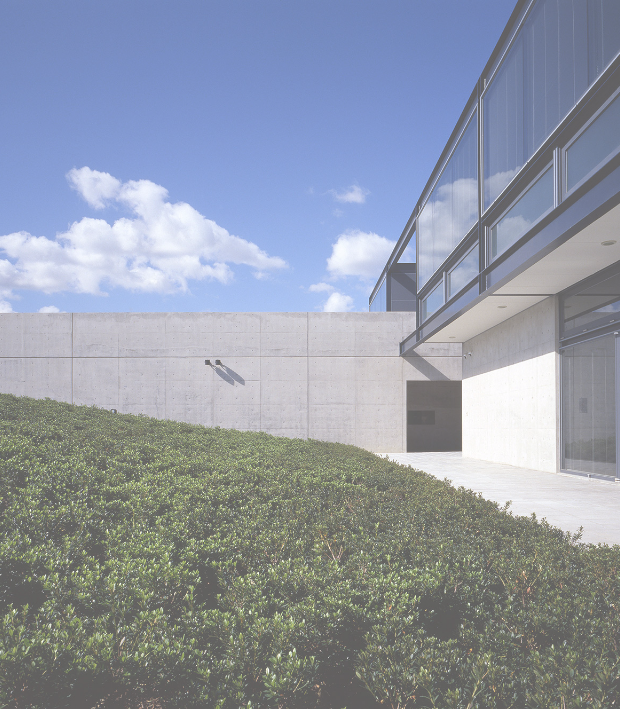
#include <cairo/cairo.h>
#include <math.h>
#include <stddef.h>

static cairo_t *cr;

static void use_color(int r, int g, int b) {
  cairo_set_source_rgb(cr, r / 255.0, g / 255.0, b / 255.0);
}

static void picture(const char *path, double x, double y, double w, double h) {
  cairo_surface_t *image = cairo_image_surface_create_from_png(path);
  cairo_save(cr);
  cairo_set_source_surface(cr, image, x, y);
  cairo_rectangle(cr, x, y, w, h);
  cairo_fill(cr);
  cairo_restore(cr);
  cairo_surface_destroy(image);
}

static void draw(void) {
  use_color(255, 255, 255);
  cairo_paint(cr);
  picture("img_01.png", 0, 0, 620, 709);
}

int main(void) {
  cairo_surface_t *surface = cairo_image_surface_create(CAIRO_FORMAT_RGB24, 620, 709);
  cr = cairo_create(surface);
  cairo_font_options_t *options = cairo_font_options_create();
  cairo_font_options_set_hint_metrics(options, CAIRO_HINT_METRICS_OFF);
  cairo_font_options_set_hint_style(options, CAIRO_HINT_STYLE_NONE);
  cairo_set_font_options(cr, options);
  cairo_set_miter_limit(cr, 4);
  draw();
  cairo_surface_write_to_png(surface, "out.png");
  cairo_font_options_destroy(options);
  cairo_destroy(cr);
  cairo_surface_destroy(surface);
  return 0;
}
